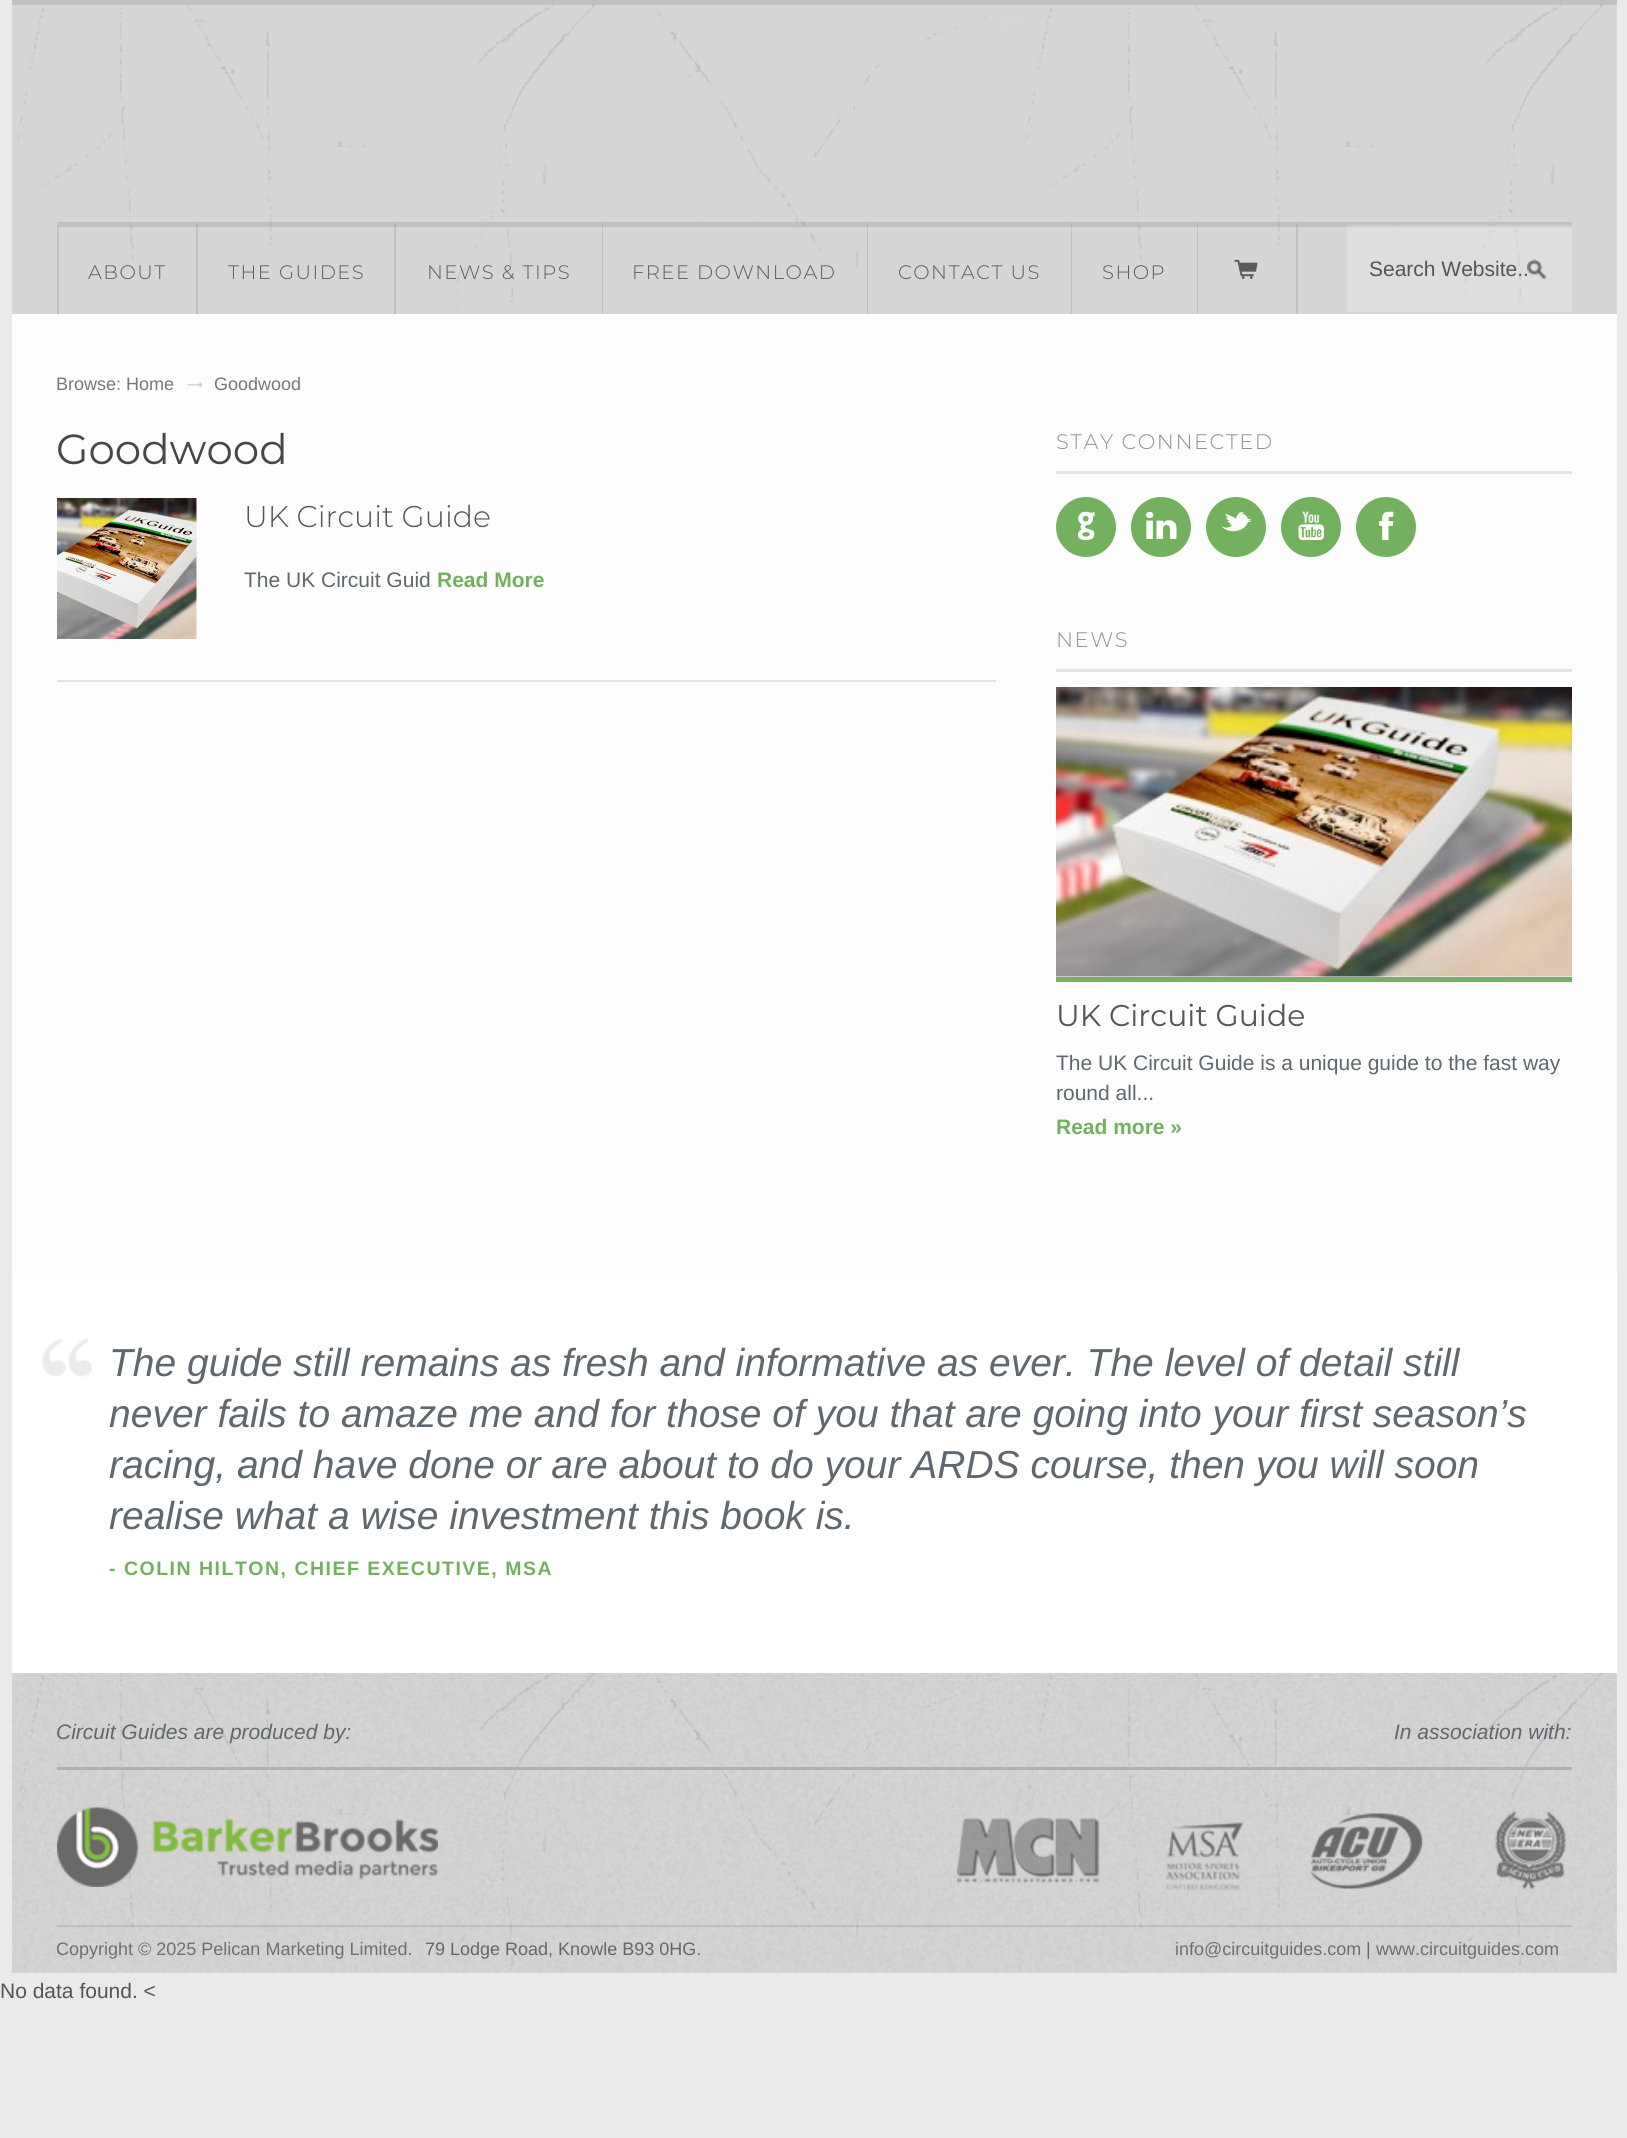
#include <cairo/cairo.h>
#include <math.h>
#include <stddef.h>

static cairo_t *cr;

static void use_color(int r, int g, int b) {
  cairo_set_source_rgb(cr, r / 255.0, g / 255.0, b / 255.0);
}

static void text(double x, double y, const char *s, const char *family, double size, int italic, int bold, int r, int g, int b) {
  cairo_select_font_face(cr, family, italic ? CAIRO_FONT_SLANT_ITALIC : CAIRO_FONT_SLANT_NORMAL,
    bold ? CAIRO_FONT_WEIGHT_BOLD : CAIRO_FONT_WEIGHT_NORMAL);
  cairo_set_font_size(cr, size);
  use_color(r, g, b);
  cairo_move_to(cr, x, y);
  cairo_show_text(cr, s);
}

static void spaced_text(double x, double y, const char *s, double letter, double word) {
  cairo_move_to(cr, x, y);
  while (*s) {
    char ch[5] = {0};
    int n = 0;
    do ch[n++] = *s++; while ((*s & 0xC0) == 0x80);
    cairo_show_text(cr, ch);
    cairo_rel_move_to(cr, letter + word * (*ch == ' '), 0);
  }
}

static void box(double x, double y, double w, double h, int r, int g, int b) {
  use_color(r, g, b);
  cairo_rectangle(cr, x, y, w, h);
  cairo_fill(cr);
}

static void picture(const char *path, double x, double y, double w, double h) {
  cairo_surface_t *image = cairo_image_surface_create_from_png(path);
  cairo_save(cr);
  cairo_set_source_surface(cr, image, x, y);
  cairo_rectangle(cr, x, y, w, h);
  cairo_fill(cr);
  cairo_restore(cr);
  cairo_surface_destroy(image);
}

static void draw(void) {
  use_color(234, 234, 234);
  cairo_paint(cr);
  box(12, 0, 1605, 314, 215, 214, 212);
  picture("img_01.png", 17, 4, 1587, 309);
  cairo_set_source_rgba(cr, 0, 0, 0, 0.1);
  cairo_rectangle(cr, 12, 0, 1605, 5);
  cairo_fill(cr);
  cairo_rectangle(cr, 57, 222, 1515, 5);
  cairo_fill(cr);
  box(57, 227, 2, 87, 194, 193, 191);
  cairo_set_source_rgba(cr, 0, 0, 0, 0.1);
  cairo_new_path(cr);
  cairo_move_to(cr, 198, 222);
  cairo_line_to(cr, 198, 314);
  cairo_line_to(cr, 196, 314);
  cairo_line_to(cr, 196, 226);
  cairo_close_path(cr);
  cairo_fill(cr);
  cairo_new_path(cr);
  cairo_move_to(cr, 396, 222);
  cairo_line_to(cr, 396, 314);
  cairo_line_to(cr, 394, 314);
  cairo_line_to(cr, 394, 226);
  cairo_close_path(cr);
  cairo_fill(cr);
  cairo_new_path(cr);
  cairo_move_to(cr, 603, 222);
  cairo_line_to(cr, 603, 314);
  cairo_line_to(cr, 602, 314);
  cairo_line_to(cr, 602, 226);
  cairo_close_path(cr);
  cairo_fill(cr);
  cairo_new_path(cr);
  cairo_move_to(cr, 868, 222);
  cairo_line_to(cr, 868, 314);
  cairo_line_to(cr, 867, 314);
  cairo_line_to(cr, 867, 226);
  cairo_close_path(cr);
  cairo_fill(cr);
  cairo_new_path(cr);
  cairo_move_to(cr, 1072, 222);
  cairo_line_to(cr, 1072, 314);
  cairo_line_to(cr, 1071, 314);
  cairo_line_to(cr, 1071, 226);
  cairo_close_path(cr);
  cairo_fill(cr);
  cairo_new_path(cr);
  cairo_move_to(cr, 1198, 222);
  cairo_line_to(cr, 1198, 314);
  cairo_line_to(cr, 1197, 314);
  cairo_line_to(cr, 1197, 226);
  cairo_close_path(cr);
  cairo_fill(cr);
  cairo_new_path(cr);
  cairo_move_to(cr, 1298, 222);
  cairo_line_to(cr, 1298, 314);
  cairo_line_to(cr, 1296, 314);
  cairo_line_to(cr, 1296, 226);
  cairo_close_path(cr);
  cairo_fill(cr);
  picture("img_02.png", 1234, 259, 24, 20);
  cairo_set_source_rgba(cr, 1, 1, 1, 0.2);
  cairo_rectangle(cr, 1347, 225, 225, 87);
  cairo_fill(cr);
  picture("img_03.png", 1527, 259, 20, 20);
  cairo_set_source_rgba(cr, 1, 1, 1, 0.9);
  cairo_rectangle(cr, 12, 314, 1605, 963);
  cairo_fill(cr);
  picture("img_04.png", 187, 382, 16, 5);
  box(57, 680, 939, 2, 228, 228, 228);
  picture("img_05.png", 57, 498, 140, 141);
  box(1056, 471, 516, 3, 228, 228, 228);
  use_color(115, 177, 94);
  cairo_arc(cr, 1086, 527, 30, 0, 2 * M_PI);
  cairo_fill(cr);
  cairo_arc(cr, 1161, 527, 30, 0, 2 * M_PI);
  cairo_fill(cr);
  cairo_arc(cr, 1236, 527, 30, 0, 2 * M_PI);
  cairo_fill(cr);
  cairo_arc(cr, 1311, 527, 30, 0, 2 * M_PI);
  cairo_fill(cr);
  cairo_arc(cr, 1386, 527, 30, 0, 2 * M_PI);
  cairo_fill(cr);
  box(1056, 669, 516, 3, 228, 228, 228);
  picture("img_06.png", 1056, 687, 516, 290);
  box(1056, 977, 516, 5, 115, 178, 94);
  box(12, 1277, 1605, 396, 255, 255, 255);
  picture("img_07.png", 42, 1338, 50, 39);
  box(12, 1673, 1605, 300, 215, 214, 212);
  picture("img_08.png", 12, 1673, 1605, 300);
  box(57, 1767, 1515, 3, 176, 176, 176);
  picture("img_09.png", 57, 1807, 381, 80);
  picture("img_10.png", 957, 1817, 143, 66);
  picture("img_11.png", 1165, 1822, 79, 68);
  picture("img_12.png", 1310, 1813, 113, 76);
  picture("img_13.png", 1495, 1811, 72, 79);
  cairo_set_source_rgba(cr, 0, 0, 0, 0.1);
  cairo_rectangle(cr, 57, 1925, 1515, 2);
  cairo_fill(cr);
  cairo_select_font_face(cr, "Montserrat Light", CAIRO_FONT_SLANT_NORMAL, CAIRO_FONT_WEIGHT_NORMAL);
  cairo_set_font_size(cr, 19.5);
  use_color(88, 92, 95);
  spaced_text(88, 279, "ABOUT", 1.5, 0);
  spaced_text(228, 279, "THE GUIDES", 1.5, 0);
  spaced_text(427, 279, "NEWS & TIPS", 1.5, 0);
  spaced_text(632, 279, "FREE DOWNLOAD", 1.5, 0);
  spaced_text(898, 279, "CONTACT US", 1.5, 0);
  spaced_text(1102, 279, "SHOP", 1.5, 0);
  text(1369, 276, "Search Website..", "Liberation Sans", 21, 0, 0, 85, 85, 85);
  text(56, 390, "Browse: Home", "Liberation Sans", 18, 0, 0, 117, 120, 127);
  text(214, 390, "Goodwood", "Liberation Sans", 18, 0, 0, 117, 120, 127);
  text(56, 464, "Goodwood", "Montserrat", 42, 0, 0, 71, 71, 71);
  text(244, 527, "UK Circuit Guide", "Montserrat Light", 30, 0, 0, 85, 85, 85);
  text(244, 587, "The UK Circuit Guid", "Liberation Sans", 21, 0, 0, 95, 104, 110);
  text(437, 587, "Read More", "Liberation Sans", 21, 0, 1, 115, 177, 94);
  cairo_select_font_face(cr, "Montserrat Light", CAIRO_FONT_SLANT_NORMAL, CAIRO_FONT_WEIGHT_NORMAL);
  use_color(144, 144, 144);
  spaced_text(1056, 449, "STAY CONNECTED", 1.5, 0);
  text(1070, 539, "G", "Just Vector", 39, 0, 0, 255, 255, 255);
  text(1145, 539, "l", "Just Vector", 39, 0, 0, 255, 255, 255);
  text(1220, 539, "t", "Just Vector", 39, 0, 0, 255, 255, 255);
  text(1295, 539, "y", "Just Vector", 39, 0, 0, 255, 255, 255);
  text(1370, 539, "F", "Just Vector", 39, 0, 0, 255, 255, 255);
  cairo_select_font_face(cr, "Montserrat Light", CAIRO_FONT_SLANT_NORMAL, CAIRO_FONT_WEIGHT_NORMAL);
  cairo_set_font_size(cr, 21);
  use_color(144, 144, 144);
  spaced_text(1056, 647, "NEWS", 1.5, 0);
  text(1056, 1026, "UK Circuit Guide", "Montserrat", 30, 0, 0, 85, 85, 85);
  text(1056, 1070, "The UK Circuit Guide is a unique guide to the fast way", "Liberation Sans", 21, 0, 0, 95, 104, 110);
  text(1056, 1100, "round all...", "Liberation Sans", 21, 0, 0, 95, 104, 110);
  text(1056, 1134, "Read more »", "Liberation Sans", 21, 0, 1, 115, 177, 94);
  text(109, 1376, "The guide still remains as fresh and informative as ever. The level of detail still", "Liberation Sans", 39, 1, 0, 95, 104, 110);
  text(109, 1427, "never fails to amaze me and for those of you that are going into your first season’s", "Liberation Sans", 39, 1, 0, 95, 104, 110);
  text(109, 1478, "racing, and have done or are about to do your ARDS course, then you will soon", "Liberation Sans", 39, 1, 0, 95, 104, 110);
  text(109, 1529, "realise what a wise investment this book is.", "Liberation Sans", 39, 1, 0, 95, 104, 110);
  cairo_select_font_face(cr, "Liberation Sans", CAIRO_FONT_SLANT_NORMAL, CAIRO_FONT_WEIGHT_BOLD);
  cairo_set_font_size(cr, 19.5);
  use_color(115, 177, 94);
  spaced_text(109, 1575, "- COLIN HILTON, CHIEF EXECUTIVE, MSA", 1.5, 0);
  text(56, 1739, "Circuit Guides are produced by:", "Liberation Sans", 21, 1, 0, 95, 104, 110);
  text(1394, 1739, "In association with:", "Liberation Sans", 21, 1, 0, 95, 104, 110);
  text(56, 1955, "Copyright © 2025 Pelican Marketing Limited.", "Liberation Sans", 18, 0, 0, 110, 111, 115);
  text(425, 1955, "79 Lodge Road, Knowle B93 0HG.", "Liberation Sans", 18, 0, 0, 95, 104, 110);
  text(1175, 1955, "info@circuitguides.com", "Liberation Sans", 18, 0, 0, 110, 111, 115);
  text(1366, 1955, "|", "Liberation Sans", 18, 0, 0, 95, 104, 110);
  text(1376, 1955, "www.circuitguides.com", "Liberation Sans", 18, 0, 0, 110, 111, 115);
  text(0, 1998, "No data found. <", "Liberation Sans", 21, 0, 0, 85, 85, 85);
}

int main(void) {
  cairo_surface_t *surface = cairo_image_surface_create(CAIRO_FORMAT_RGB24, 1627, 2138);
  cr = cairo_create(surface);
  cairo_font_options_t *options = cairo_font_options_create();
  cairo_font_options_set_hint_metrics(options, CAIRO_HINT_METRICS_OFF);
  cairo_font_options_set_hint_style(options, CAIRO_HINT_STYLE_NONE);
  cairo_set_font_options(cr, options);
  cairo_set_miter_limit(cr, 4);
  draw();
  cairo_surface_write_to_png(surface, "out.png");
  cairo_font_options_destroy(options);
  cairo_destroy(cr);
  cairo_surface_destroy(surface);
  return 0;
}
